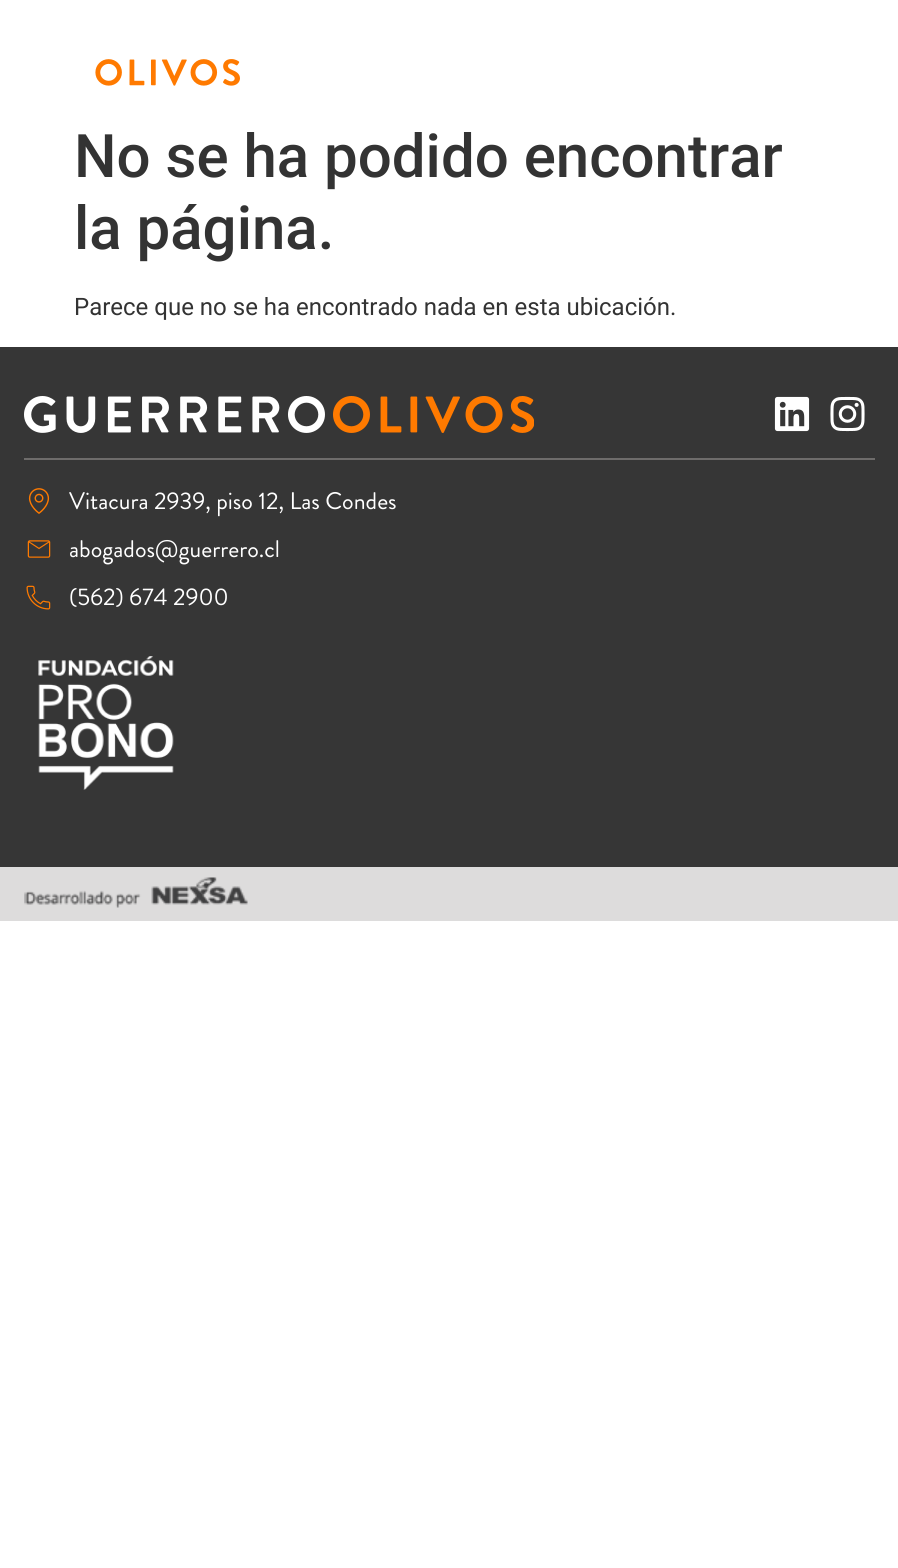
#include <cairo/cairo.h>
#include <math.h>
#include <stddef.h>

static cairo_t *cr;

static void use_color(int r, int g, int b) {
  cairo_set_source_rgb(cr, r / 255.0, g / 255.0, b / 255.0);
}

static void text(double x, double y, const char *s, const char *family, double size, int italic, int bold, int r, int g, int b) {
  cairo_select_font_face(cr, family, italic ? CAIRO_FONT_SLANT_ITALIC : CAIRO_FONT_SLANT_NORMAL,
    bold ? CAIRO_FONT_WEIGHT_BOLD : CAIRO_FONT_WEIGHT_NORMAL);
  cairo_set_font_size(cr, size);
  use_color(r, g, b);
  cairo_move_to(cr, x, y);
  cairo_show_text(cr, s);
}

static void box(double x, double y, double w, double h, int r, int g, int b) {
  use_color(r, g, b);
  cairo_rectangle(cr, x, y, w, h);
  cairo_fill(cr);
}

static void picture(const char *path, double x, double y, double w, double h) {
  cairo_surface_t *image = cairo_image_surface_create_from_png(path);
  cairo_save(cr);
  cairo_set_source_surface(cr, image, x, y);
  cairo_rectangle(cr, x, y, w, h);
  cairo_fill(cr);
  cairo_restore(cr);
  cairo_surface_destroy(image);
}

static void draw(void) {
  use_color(255, 255, 255);
  cairo_paint(cr);
  picture("img_01.png", 95, 59, 145, 27);
  box(0, 347, 898, 520, 54, 54, 54);
  picture("img_02.png", 24, 396, 510, 37);
  picture("img_03.png", 774, 396, 36, 36);
  picture("img_04.png", 830, 396, 35, 36);
  box(24, 458, 851, 2, 110, 108, 107);
  picture("img_05.png", 28, 488, 22, 26);
  picture("img_06.png", 27, 540, 24, 18);
  picture("img_07.png", 26, 585, 25, 25);
  picture("img_08.png", 38, 656, 136, 134);
  box(0, 867, 898, 54, 221, 220, 220);
  picture("img_09.png", 24, 877, 224, 31);
  text(74, 177, "No se ha podido encontrar", "Roboto Medium", 60, 0, 0, 51, 51, 51);
  text(74, 249, "la página.", "Roboto Medium", 60, 0, 0, 51, 51, 51);
  text(74, 315, "Parece que no se ha encontrado nada en esta ubicación.", "Roboto", 24, 0, 0, 51, 51, 51);
  text(69, 509, "Vitacura 2939, piso 12, Las Condes", "Brandon Grotesque", 24, 0, 0, 255, 255, 255);
  text(69, 557, "abogados@guerrero.cl", "Brandon Grotesque", 24, 0, 0, 255, 255, 255);
  text(69, 605, "(562) 674 2900", "Brandon Grotesque", 24, 0, 0, 255, 255, 255);
}

int main(void) {
  cairo_surface_t *surface = cairo_image_surface_create(CAIRO_FORMAT_RGB24, 898, 1568);
  cr = cairo_create(surface);
  cairo_font_options_t *options = cairo_font_options_create();
  cairo_font_options_set_hint_metrics(options, CAIRO_HINT_METRICS_OFF);
  cairo_font_options_set_hint_style(options, CAIRO_HINT_STYLE_NONE);
  cairo_set_font_options(cr, options);
  cairo_set_miter_limit(cr, 4);
  draw();
  cairo_surface_write_to_png(surface, "out.png");
  cairo_font_options_destroy(options);
  cairo_destroy(cr);
  cairo_surface_destroy(surface);
  return 0;
}
